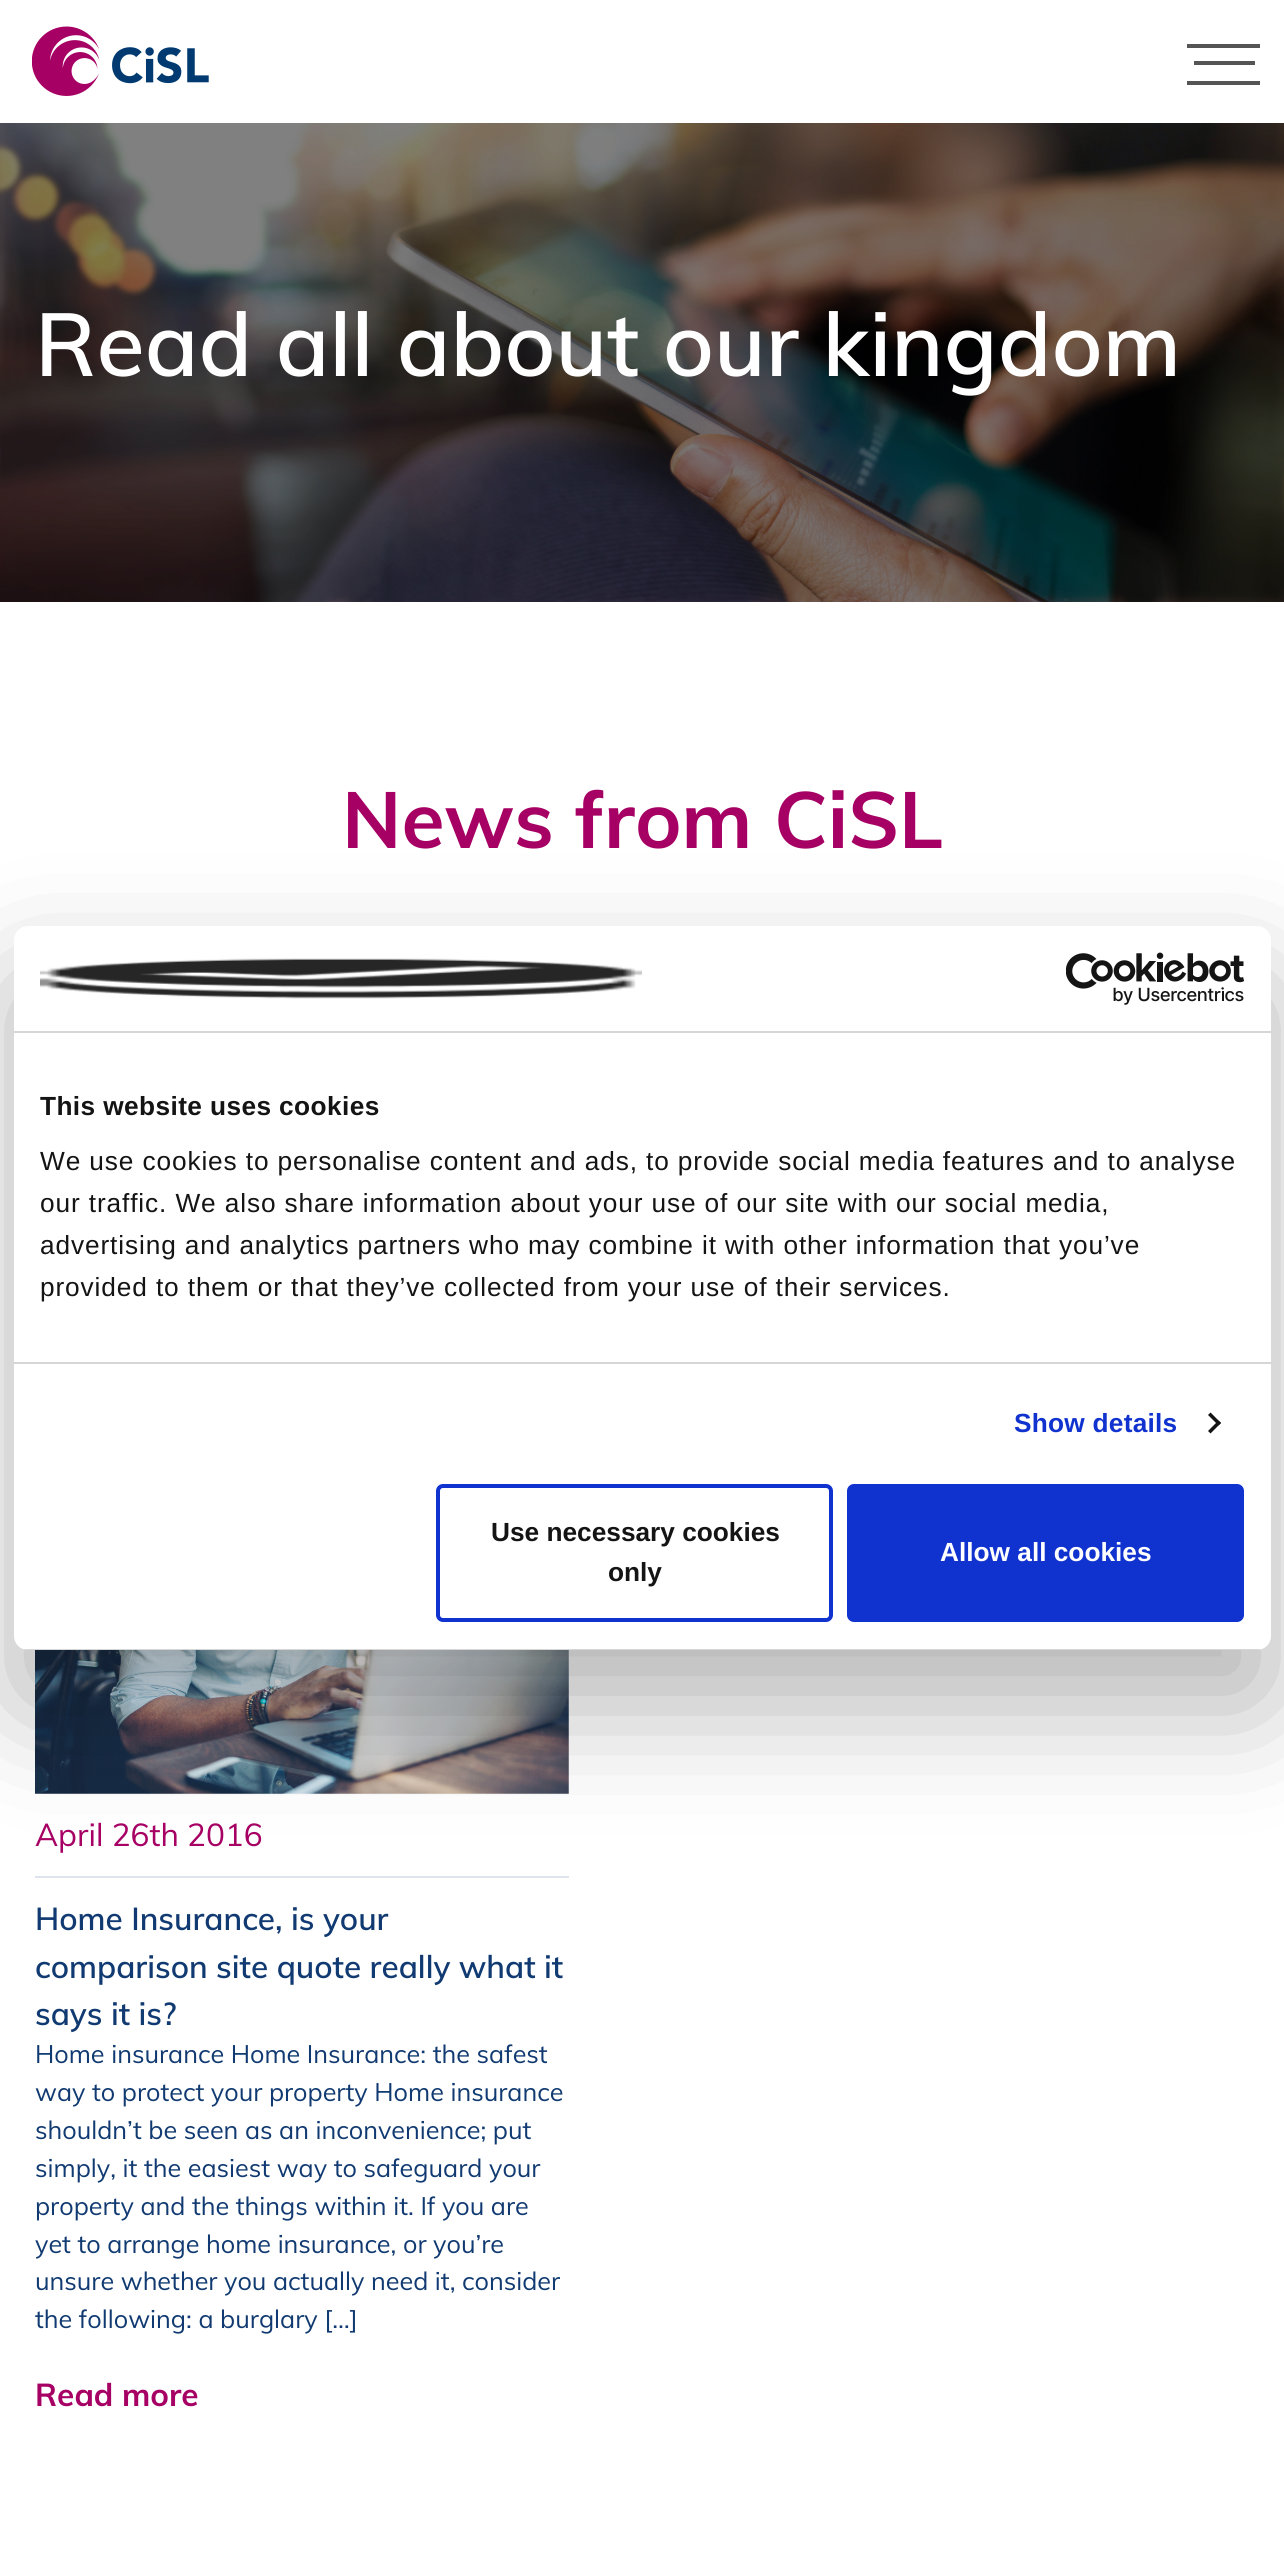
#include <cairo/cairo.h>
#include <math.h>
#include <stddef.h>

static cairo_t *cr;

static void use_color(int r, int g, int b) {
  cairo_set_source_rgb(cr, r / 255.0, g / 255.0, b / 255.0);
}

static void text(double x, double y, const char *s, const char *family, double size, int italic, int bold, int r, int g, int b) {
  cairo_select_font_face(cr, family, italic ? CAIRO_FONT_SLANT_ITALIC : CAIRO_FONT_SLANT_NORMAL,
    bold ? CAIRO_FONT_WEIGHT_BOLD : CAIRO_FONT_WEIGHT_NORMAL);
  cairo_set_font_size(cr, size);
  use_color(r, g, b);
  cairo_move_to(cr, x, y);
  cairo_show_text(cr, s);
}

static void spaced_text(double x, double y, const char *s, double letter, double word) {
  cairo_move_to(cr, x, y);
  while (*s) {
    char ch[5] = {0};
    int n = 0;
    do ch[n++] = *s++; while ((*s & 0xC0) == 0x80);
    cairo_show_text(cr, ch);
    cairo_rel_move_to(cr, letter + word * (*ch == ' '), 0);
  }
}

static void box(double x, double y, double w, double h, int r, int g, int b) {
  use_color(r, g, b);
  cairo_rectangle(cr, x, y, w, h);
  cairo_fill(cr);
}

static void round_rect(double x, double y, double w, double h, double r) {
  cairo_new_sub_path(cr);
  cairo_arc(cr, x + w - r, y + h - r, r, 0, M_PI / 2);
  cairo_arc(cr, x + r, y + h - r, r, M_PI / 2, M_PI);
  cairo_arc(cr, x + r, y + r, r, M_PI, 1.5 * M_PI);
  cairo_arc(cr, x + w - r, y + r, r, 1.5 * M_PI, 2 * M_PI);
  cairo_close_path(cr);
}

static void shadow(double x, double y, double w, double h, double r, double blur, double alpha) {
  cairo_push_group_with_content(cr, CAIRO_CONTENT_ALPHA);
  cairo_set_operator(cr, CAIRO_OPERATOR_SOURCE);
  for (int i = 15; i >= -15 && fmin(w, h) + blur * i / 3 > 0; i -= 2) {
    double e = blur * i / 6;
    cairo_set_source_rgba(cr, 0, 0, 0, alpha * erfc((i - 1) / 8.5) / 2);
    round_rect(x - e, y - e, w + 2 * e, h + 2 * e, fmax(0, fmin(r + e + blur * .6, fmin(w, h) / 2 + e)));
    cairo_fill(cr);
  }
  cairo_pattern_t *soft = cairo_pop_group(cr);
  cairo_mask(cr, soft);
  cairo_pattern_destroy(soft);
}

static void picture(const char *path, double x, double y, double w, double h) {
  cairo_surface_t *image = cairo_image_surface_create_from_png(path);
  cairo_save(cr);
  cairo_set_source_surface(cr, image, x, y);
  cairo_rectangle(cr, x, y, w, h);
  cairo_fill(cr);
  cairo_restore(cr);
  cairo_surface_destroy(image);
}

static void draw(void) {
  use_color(255, 255, 255);
  cairo_paint(cr);
  picture("img_01.png", 32, 26, 177, 70);
  box(1187, 44, 73, 4, 85, 85, 85);
  box(1194, 61, 61, 4, 85, 85, 85);
  box(1187, 81, 73, 4, 85, 85, 85);
  picture("img_02.png", 0, 123, 1284, 479);
  picture("img_03.png", 35, 1650, 534, 144);
  box(35, 1876, 534, 2, 223, 227, 238);
  use_color(0, 0, 0);
  shadow(14, 982, 1257, 724, 14, 59.5, 0.3);
  use_color(255, 255, 255);
  round_rect(14, 926, 1257, 724, 14);
  cairo_fill(cr);
  box(14, 1031, 1257, 2, 214, 214, 214);
  picture("img_04.png", 40, 958, 602, 41);
  picture("img_05.png", 1066, 952, 178, 53);
  box(14, 1362, 1257, 2, 214, 214, 214);
  use_color(20, 20, 20);
  cairo_new_path(cr);
  cairo_move_to(cr, 1210.5, 1412.5);
  cairo_line_to(cr, 1221, 1423);
  cairo_line_to(cr, 1218.5, 1425.5);
  cairo_line_to(cr, 1208, 1415);
  cairo_close_path(cr);
  cairo_fill(cr);
  cairo_new_path(cr);
  cairo_move_to(cr, 1218.5, 1420.5);
  cairo_line_to(cr, 1221, 1423);
  cairo_line_to(cr, 1210.5, 1433.5);
  cairo_line_to(cr, 1208, 1431);
  cairo_close_path(cr);
  cairo_fill(cr);
  cairo_save(cr);
  round_rect(14, 926, 1257, 724, 14);
  cairo_clip(cr);
  box(23, 1649, 1239, 1, 214, 214, 214);
  cairo_restore(cr);
  round_rect(438, 1486, 393, 134, 5);
  use_color(16, 50, 207);
  cairo_set_line_width(cr, 4);
  cairo_stroke(cr);
  round_rect(849, 1486, 393, 134, 5);
  cairo_fill_preserve(cr);
  cairo_stroke(cr);
  text(35, 376, "Read all about our kingdom", "Muli SemiBold", 88.25, 0, 0, 255, 255, 255);
  text(342, 848, "News from CiSL", "Muli", 78.75, 0, 1, 167, 0, 100);
  text(35, 1846, "April 26th 2016", "Muli", 31.5, 0, 0, 167, 0, 100);
  text(35, 1930, "Home Insurance, is your", "Muli SemiBold", 31.5, 0, 0, 16, 58, 113);
  text(35, 1978, "comparison site quote really what it", "Muli SemiBold", 31.5, 0, 0, 16, 58, 113);
  text(35, 2025, "says it is?", "Muli SemiBold", 31.5, 0, 0, 16, 58, 113);
  text(35, 2063, "Home insurance Home Insurance: the safest", "Muli", 25.2, 0, 0, 16, 58, 113);
  text(35, 2101, "way to protect your property Home insurance", "Muli", 25.2, 0, 0, 16, 58, 113);
  text(35, 2139, "shouldn’t be seen as an inconvenience; put", "Muli", 25.2, 0, 0, 16, 58, 113);
  text(35, 2177, "simply, it the easiest way to safeguard your", "Muli", 25.2, 0, 0, 16, 58, 113);
  text(35, 2215, "property and the things within it. If you are", "Muli", 25.2, 0, 0, 16, 58, 113);
  text(35, 2253, "yet to arrange home insurance, or you’re", "Muli", 25.2, 0, 0, 16, 58, 113);
  text(35, 2290, "unsure whether you actually need it, consider", "Muli", 25.2, 0, 0, 16, 58, 113);
  text(35, 2328, "the following: a burglary […]", "Muli", 25.2, 0, 0, 16, 58, 113);
  text(35, 2406, "Read more", "Muli", 31.5, 0, 1, 167, 0, 100);
  cairo_select_font_face(cr, "Liberation Sans", CAIRO_FONT_SLANT_NORMAL, CAIRO_FONT_WEIGHT_BOLD);
  cairo_set_font_size(cr, 26.25);
  use_color(20, 20, 20);
  spaced_text(40, 1115, "This website uses cookies", 0.4, 0);
  cairo_select_font_face(cr, "Liberation Sans", CAIRO_FONT_SLANT_NORMAL, CAIRO_FONT_WEIGHT_NORMAL);
  spaced_text(40, 1170, "We use cookies to personalise content and ads, to provide social media features and to analyse", 0.88, 0);
  spaced_text(40, 1212, "our traffic. We also share information about your use of our site with our social media,", 0.88, 0);
  spaced_text(40, 1254, "advertising and analytics partners who may combine it with other information that you’ve", 0.88, 0);
  spaced_text(40, 1296, "provided to them or that they’ve collected from your use of their services.", 0.88, 0);
  cairo_select_font_face(cr, "Liberation Sans", CAIRO_FONT_SLANT_NORMAL, CAIRO_FONT_WEIGHT_BOLD);
  use_color(16, 50, 207);
  spaced_text(1014, 1432, "Show details", 0.25, 0);
  text(491, 1541, "Use necessary cookies", "Liberation Sans", 26.25, 0, 1, 20, 20, 20);
  text(608, 1581, "only", "Liberation Sans", 26.25, 0, 1, 20, 20, 20);
  text(940, 1561, "Allow all cookies", "Liberation Sans", 26.25, 0, 1, 255, 255, 255);
}

int main(void) {
  cairo_surface_t *surface = cairo_image_surface_create(CAIRO_FORMAT_RGB24, 1284, 2575);
  cr = cairo_create(surface);
  cairo_font_options_t *options = cairo_font_options_create();
  cairo_font_options_set_hint_metrics(options, CAIRO_HINT_METRICS_OFF);
  cairo_font_options_set_hint_style(options, CAIRO_HINT_STYLE_NONE);
  cairo_set_font_options(cr, options);
  cairo_set_miter_limit(cr, 4);
  draw();
  cairo_surface_write_to_png(surface, "out.png");
  cairo_font_options_destroy(options);
  cairo_destroy(cr);
  cairo_surface_destroy(surface);
  return 0;
}
